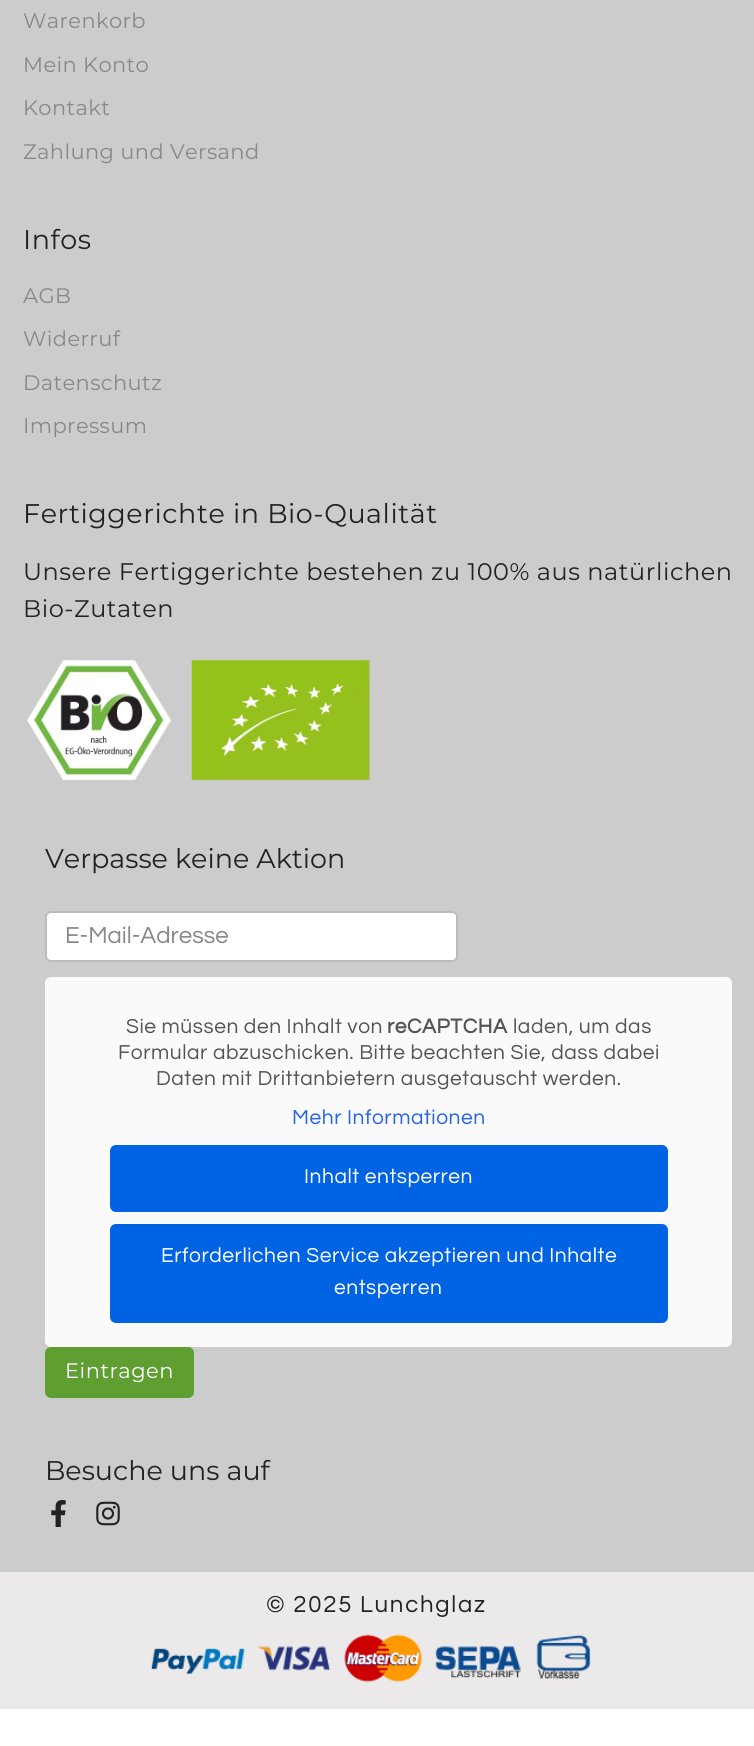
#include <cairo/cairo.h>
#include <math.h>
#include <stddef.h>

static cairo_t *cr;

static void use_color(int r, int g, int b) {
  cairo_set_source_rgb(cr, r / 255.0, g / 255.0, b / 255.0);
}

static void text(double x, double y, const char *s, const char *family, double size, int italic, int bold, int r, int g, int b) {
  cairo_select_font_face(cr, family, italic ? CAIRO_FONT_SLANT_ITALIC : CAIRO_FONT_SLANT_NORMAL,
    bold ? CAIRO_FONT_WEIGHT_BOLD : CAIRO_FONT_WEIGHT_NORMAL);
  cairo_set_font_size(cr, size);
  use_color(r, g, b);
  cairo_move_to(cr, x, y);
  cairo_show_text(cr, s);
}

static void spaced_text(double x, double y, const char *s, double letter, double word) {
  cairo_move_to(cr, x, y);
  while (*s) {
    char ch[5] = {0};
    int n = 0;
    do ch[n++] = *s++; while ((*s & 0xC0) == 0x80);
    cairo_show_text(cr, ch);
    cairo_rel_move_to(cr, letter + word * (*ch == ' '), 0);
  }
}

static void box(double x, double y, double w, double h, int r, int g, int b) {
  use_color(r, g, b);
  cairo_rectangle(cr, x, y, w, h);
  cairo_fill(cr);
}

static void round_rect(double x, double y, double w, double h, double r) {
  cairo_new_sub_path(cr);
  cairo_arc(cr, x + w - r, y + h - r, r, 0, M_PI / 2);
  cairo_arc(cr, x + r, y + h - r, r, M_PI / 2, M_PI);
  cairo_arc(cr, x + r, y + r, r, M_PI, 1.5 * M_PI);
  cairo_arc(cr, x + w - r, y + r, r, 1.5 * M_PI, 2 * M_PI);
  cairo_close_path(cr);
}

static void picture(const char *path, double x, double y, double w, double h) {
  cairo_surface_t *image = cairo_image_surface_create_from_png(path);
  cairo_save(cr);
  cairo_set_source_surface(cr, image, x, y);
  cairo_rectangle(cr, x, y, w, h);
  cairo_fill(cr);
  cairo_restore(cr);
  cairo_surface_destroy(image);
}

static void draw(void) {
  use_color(255, 255, 255);
  cairo_paint(cr);
  box(0, 0, 754, 1572, 204, 204, 204);
  picture("img_01.png", 27, 659, 343, 122);
  use_color(255, 255, 255);
  round_rect(46, 912, 411, 49, 5);
  cairo_fill_preserve(cr);
  use_color(187, 187, 187);
  cairo_stroke(cr);
  use_color(250, 250, 250);
  round_rect(45, 977, 687, 370, 6);
  cairo_fill(cr);
  use_color(0, 99, 227);
  round_rect(110, 1145, 558, 67, 6);
  cairo_fill(cr);
  round_rect(110, 1224, 558, 99, 6);
  cairo_fill(cr);
  use_color(95, 159, 49);
  round_rect(45, 1347, 149, 51, 6);
  cairo_fill(cr);
  picture("img_02.png", 51, 1500, 15, 27);
  picture("img_03.png", 96, 1501, 24, 25);
  box(0, 1572, 754, 137, 235, 233, 233);
  picture("img_04.png", 151, 1634, 440, 48);
  cairo_select_font_face(cr, "Montserrat", CAIRO_FONT_SLANT_NORMAL, CAIRO_FONT_WEIGHT_NORMAL);
  cairo_set_font_size(cr, 21);
  use_color(136, 136, 136);
  spaced_text(23, 28, "Warenkorb", 0.4, 0);
  spaced_text(23, 72, "Mein Konto", 0.4, 0);
  spaced_text(23, 115, "Kontakt", 0.4, 0);
  spaced_text(23, 159, "Zahlung und Versand", 0.4, 0);
  cairo_set_font_size(cr, 27);
  use_color(34, 34, 34);
  spaced_text(23, 249, "Infos", 0.55, 0);
  cairo_set_font_size(cr, 21);
  use_color(136, 136, 136);
  spaced_text(23, 303, "AGB", 0.4, 0);
  spaced_text(23, 346, "Widerruf", 0.4, 0);
  spaced_text(23, 390, "Datenschutz", 0.4, 0);
  spaced_text(23, 433, "Impressum", 0.4, 0);
  cairo_set_font_size(cr, 27);
  use_color(34, 34, 34);
  spaced_text(23, 523, "Fertiggerichte in Bio-Qualität", 0.55, 0);
  cairo_set_font_size(cr, 24);
  spaced_text(23, 580, "Unsere Fertiggerichte bestehen zu 100% aus natürlichen", 0.55, 0);
  spaced_text(23, 617, "Bio-Zutaten", 0.55, 0);
  text(45, 868, "Verpasse keine Aktion", "Montserrat", 27, 0, 0, 34, 34, 34);
  text(65, 943, "E-Mail-Adresse", "Questrial", 24, 0, 0, 136, 136, 136);
  cairo_set_font_size(cr, 21);
  use_color(85, 85, 85);
  spaced_text(126, 1033, "Sie müssen den Inhalt von", 0.55, 0);
  cairo_select_font_face(cr, "Questrial", CAIRO_FONT_SLANT_NORMAL, CAIRO_FONT_WEIGHT_BOLD);
  spaced_text(387, 1033, "reCAPTCHA", 0.55, 0);
  cairo_select_font_face(cr, "Questrial", CAIRO_FONT_SLANT_NORMAL, CAIRO_FONT_WEIGHT_NORMAL);
  spaced_text(513, 1033, "laden, um das", 0.55, 0);
  spaced_text(118, 1059, "Formular abzuschicken. Bitte beachten Sie, dass dabei", 0.55, 0);
  spaced_text(156, 1085, "Daten mit Drittanbietern ausgetauscht werden.", 0.55, 0);
  use_color(37, 99, 235);
  spaced_text(292, 1124, "Mehr Informationen", 0.55, 0);
  use_color(255, 255, 255);
  spaced_text(304, 1183, "Inhalt entsperren", 0.55, 0);
  spaced_text(161, 1262, "Erforderlichen Service akzeptieren und Inhalte", 0.55, 0);
  spaced_text(334, 1294, "entsperren", 0.55, 0);
  cairo_select_font_face(cr, "Montserrat", CAIRO_FONT_SLANT_NORMAL, CAIRO_FONT_WEIGHT_NORMAL);
  spaced_text(65, 1378, "Eintragen", 0.5, 0);
  text(45, 1480, "Besuche uns auf", "Montserrat", 27, 0, 0, 34, 34, 34);
  cairo_select_font_face(cr, "Questrial", CAIRO_FONT_SLANT_NORMAL, CAIRO_FONT_WEIGHT_NORMAL);
  cairo_set_font_size(cr, 24);
  spaced_text(266, 1612, "© 2025 Lunchglaz", 1.75, 0);
}

int main(void) {
  cairo_surface_t *surface = cairo_image_surface_create(CAIRO_FORMAT_RGB24, 754, 1746);
  cr = cairo_create(surface);
  cairo_font_options_t *options = cairo_font_options_create();
  cairo_font_options_set_hint_metrics(options, CAIRO_HINT_METRICS_OFF);
  cairo_font_options_set_hint_style(options, CAIRO_HINT_STYLE_NONE);
  cairo_set_font_options(cr, options);
  cairo_set_miter_limit(cr, 4);
  draw();
  cairo_surface_write_to_png(surface, "out.png");
  cairo_font_options_destroy(options);
  cairo_destroy(cr);
  cairo_surface_destroy(surface);
  return 0;
}
